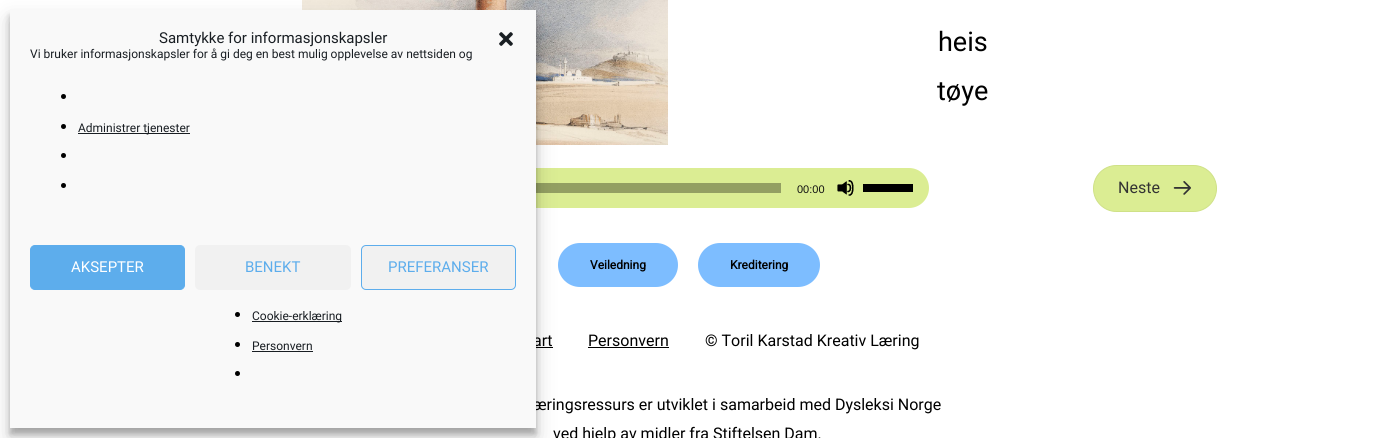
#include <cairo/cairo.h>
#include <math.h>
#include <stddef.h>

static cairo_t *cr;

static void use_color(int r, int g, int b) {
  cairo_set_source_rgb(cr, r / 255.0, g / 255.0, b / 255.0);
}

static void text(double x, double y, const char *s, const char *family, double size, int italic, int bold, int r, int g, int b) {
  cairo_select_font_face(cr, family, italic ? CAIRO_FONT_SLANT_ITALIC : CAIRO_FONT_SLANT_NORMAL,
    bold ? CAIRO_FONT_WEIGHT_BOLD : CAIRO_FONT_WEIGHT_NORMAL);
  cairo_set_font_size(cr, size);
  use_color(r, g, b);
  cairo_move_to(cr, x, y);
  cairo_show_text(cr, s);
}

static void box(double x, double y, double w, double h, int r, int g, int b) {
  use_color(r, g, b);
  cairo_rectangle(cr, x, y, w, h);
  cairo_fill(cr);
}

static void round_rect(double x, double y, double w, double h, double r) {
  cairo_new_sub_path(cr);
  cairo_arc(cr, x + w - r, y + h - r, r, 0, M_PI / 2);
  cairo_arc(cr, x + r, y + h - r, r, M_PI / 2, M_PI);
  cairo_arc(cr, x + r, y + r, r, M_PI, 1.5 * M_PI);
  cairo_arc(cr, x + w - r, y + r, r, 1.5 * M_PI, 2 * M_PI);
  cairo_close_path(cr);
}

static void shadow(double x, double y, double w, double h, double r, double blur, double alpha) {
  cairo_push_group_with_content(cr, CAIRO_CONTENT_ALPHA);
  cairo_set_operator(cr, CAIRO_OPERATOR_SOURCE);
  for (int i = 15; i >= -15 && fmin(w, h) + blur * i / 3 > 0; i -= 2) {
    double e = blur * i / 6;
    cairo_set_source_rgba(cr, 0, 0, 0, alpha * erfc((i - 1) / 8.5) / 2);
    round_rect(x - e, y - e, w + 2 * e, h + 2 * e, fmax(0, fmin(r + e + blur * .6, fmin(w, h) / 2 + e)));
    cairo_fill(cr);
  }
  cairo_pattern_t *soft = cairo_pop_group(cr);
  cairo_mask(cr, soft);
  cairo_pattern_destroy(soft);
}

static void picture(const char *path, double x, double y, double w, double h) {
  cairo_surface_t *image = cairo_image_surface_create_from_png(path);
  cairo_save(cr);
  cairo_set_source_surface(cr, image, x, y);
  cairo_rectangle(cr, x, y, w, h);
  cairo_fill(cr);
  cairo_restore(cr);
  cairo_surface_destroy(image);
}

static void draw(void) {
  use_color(255, 255, 255);
  cairo_paint(cr);
  picture("img_02.png", 302, 0, 366, 145);
  use_color(219, 237, 147);
  round_rect(435, 168, 494, 40, 20);
  cairo_fill(cr);
  box(536, 183, 245, 10, 147, 159, 98);
  box(536, 347, 17, 1, 0, 0, 0);
  use_color(0, 0, 0);
  shadow(10, 16, 526, 418, 0, 3, 0.23);
  use_color(125, 189, 255);
  round_rect(558, 243, 120, 44, 22);
  cairo_fill(cr);
  use_color(0, 0, 0);
  shadow(10, 20, 526, 418, 0, 10, 0.19);
  picture("img_03.png", 837, 180, 17, 16);
  box(863, 184, 50, 8, 0, 0, 0);
  use_color(219, 237, 147);
  round_rect(1093.5, 165.5, 123, 46, 23);
  cairo_fill_preserve(cr);
  use_color(207, 225, 135);
  cairo_set_line_width(cr, 1);
  cairo_stroke(cr);
  picture("img_04.png", 1173, 181, 18, 14);
  use_color(125, 189, 255);
  round_rect(698, 243, 122, 44, 22);
  cairo_fill(cr);
  box(588, 347, 81, 1, 0, 0, 0);
  text(938, 51, "heis", "Roboto", 27, 0, 0, 0, 0, 0);
  text(937, 100, "tøye", "Roboto", 27, 0, 0, 0, 0, 0);
  text(797, 193, "00:00", "Liberation Sans", 11, 0, 0, 17, 17, 17);
  text(1118, 193, "Neste", "Roboto", 16, 0, 0, 51, 51, 51);
  text(590, 269, "Veiledning", "Roboto", 12, 0, 1, 0, 0, 0);
  text(730, 269, "Kreditering", "Roboto", 12, 0, 1, 0, 0, 0);
  text(533, 346, "art", "Roboto", 16, 0, 0, 0, 0, 0);
  text(588, 346, "Personvern", "Roboto", 16, 0, 0, 0, 0, 0);
  text(705, 346, "© Toril Karstad Kreativ Læring", "Roboto", 16, 0, 0, 0, 0, 0);
  text(533, 410, "æringsressurs er utviklet i samarbeid med Dysleksi Norge", "Roboto", 16, 0, 0, 0, 0, 0);
  box(10, 10, 526, 418, 249, 249, 249);
  text(30, 58, "Vi bruker informasjonskapsler for å gi deg en best mulig opplevelse av nettsiden og", "Roboto", 12, 0, 0, 25, 30, 35);
  picture("img_01.png", 499, 32, 14, 14);
  use_color(0, 0, 0);
  cairo_arc(cr, 237.5, 373.5, 2.5, 0, 2 * M_PI);
  cairo_fill(cr);
  text(252, 350, "Personvern", "Roboto", 12, 0, 0, 25, 30, 35);
  box(252, 351, 61, 1, 25, 30, 35);
  use_color(0, 0, 0);
  cairo_new_path(cr);
  cairo_arc(cr, 237.5, 344.5, 2.5, 0, 2 * M_PI);
  cairo_fill(cr);
  box(252, 321, 90, 1, 25, 30, 35);
  text(252, 320, "Cookie-erklæring", "Roboto", 12, 0, 0, 25, 30, 35);
  use_color(0, 0, 0);
  cairo_new_path(cr);
  cairo_arc(cr, 237.5, 314.5, 2.5, 0, 2 * M_PI);
  cairo_fill(cr);
  use_color(241, 241, 241);
  round_rect(361.5, 245.5, 154, 44, 4.5);
  cairo_fill_preserve(cr);
  use_color(93, 173, 236);
  cairo_stroke(cr);
  text(388, 272, "PREFERANSER", "Roboto", 15, 0, 0, 93, 173, 236);
  use_color(241, 241, 241);
  round_rect(195, 245, 156, 45, 5);
  cairo_fill(cr);
  text(245, 272, "BENEKT", "Roboto", 15, 0, 0, 93, 173, 236);
  round_rect(30.5, 245.5, 154, 44, 4.5);
  cairo_fill_preserve(cr);
  cairo_stroke(cr);
  text(71, 272, "AKSEPTER", "Roboto", 15, 0, 0, 255, 255, 255);
  use_color(0, 0, 0);
  cairo_new_path(cr);
  cairo_arc(cr, 63.5, 185.5, 2.5, 0, 2 * M_PI);
  cairo_fill(cr);
  cairo_arc(cr, 63.5, 155.5, 2.5, 0, 2 * M_PI);
  cairo_fill(cr);
  box(78, 133, 112, 1, 25, 30, 35);
  text(78, 132, "Administrer tjenester", "Roboto", 12, 0, 0, 25, 30, 35);
  use_color(0, 0, 0);
  cairo_new_path(cr);
  cairo_arc(cr, 63.5, 126.5, 2.5, 0, 2 * M_PI);
  cairo_fill(cr);
  cairo_arc(cr, 63.5, 96.5, 2.5, 0, 2 * M_PI);
  cairo_fill(cr);
  text(159, 43, "Samtykke for informasjonskapsler", "Roboto", 15, 0, 0, 25, 30, 35);
  text(553, 439, "ved hjelp av midler fra Stiftelsen Dam.", "Roboto", 16, 0, 0, 0, 0, 0);
}

int main(void) {
  cairo_surface_t *surface = cairo_image_surface_create(CAIRO_FORMAT_RGB24, 1375, 438);
  cr = cairo_create(surface);
  cairo_font_options_t *options = cairo_font_options_create();
  cairo_font_options_set_hint_metrics(options, CAIRO_HINT_METRICS_OFF);
  cairo_font_options_set_hint_style(options, CAIRO_HINT_STYLE_NONE);
  cairo_set_font_options(cr, options);
  cairo_set_miter_limit(cr, 4);
  draw();
  cairo_surface_write_to_png(surface, "out.png");
  cairo_font_options_destroy(options);
  cairo_destroy(cr);
  cairo_surface_destroy(surface);
  return 0;
}
